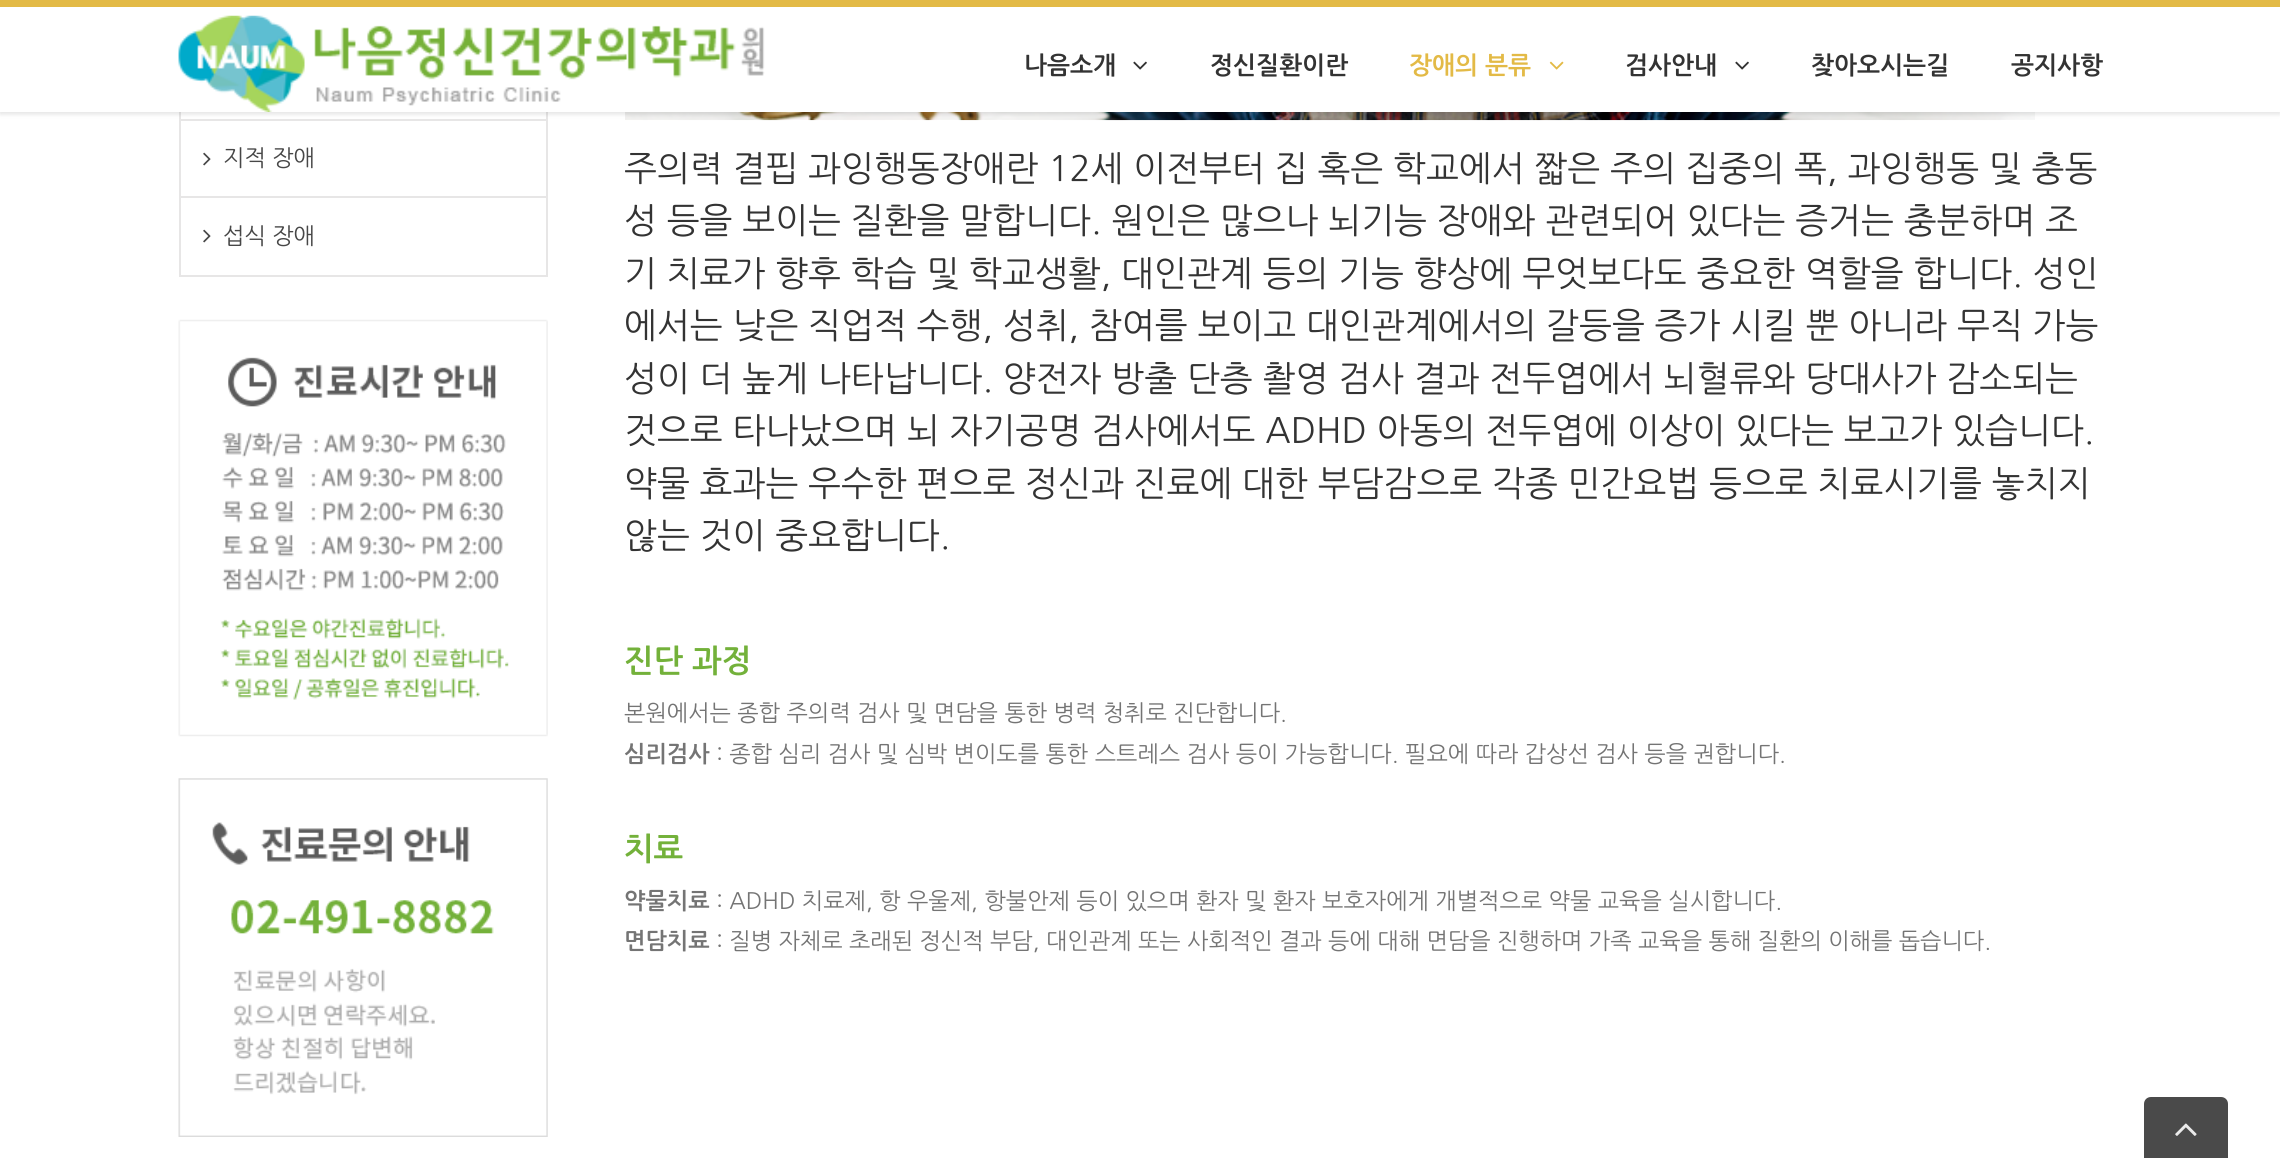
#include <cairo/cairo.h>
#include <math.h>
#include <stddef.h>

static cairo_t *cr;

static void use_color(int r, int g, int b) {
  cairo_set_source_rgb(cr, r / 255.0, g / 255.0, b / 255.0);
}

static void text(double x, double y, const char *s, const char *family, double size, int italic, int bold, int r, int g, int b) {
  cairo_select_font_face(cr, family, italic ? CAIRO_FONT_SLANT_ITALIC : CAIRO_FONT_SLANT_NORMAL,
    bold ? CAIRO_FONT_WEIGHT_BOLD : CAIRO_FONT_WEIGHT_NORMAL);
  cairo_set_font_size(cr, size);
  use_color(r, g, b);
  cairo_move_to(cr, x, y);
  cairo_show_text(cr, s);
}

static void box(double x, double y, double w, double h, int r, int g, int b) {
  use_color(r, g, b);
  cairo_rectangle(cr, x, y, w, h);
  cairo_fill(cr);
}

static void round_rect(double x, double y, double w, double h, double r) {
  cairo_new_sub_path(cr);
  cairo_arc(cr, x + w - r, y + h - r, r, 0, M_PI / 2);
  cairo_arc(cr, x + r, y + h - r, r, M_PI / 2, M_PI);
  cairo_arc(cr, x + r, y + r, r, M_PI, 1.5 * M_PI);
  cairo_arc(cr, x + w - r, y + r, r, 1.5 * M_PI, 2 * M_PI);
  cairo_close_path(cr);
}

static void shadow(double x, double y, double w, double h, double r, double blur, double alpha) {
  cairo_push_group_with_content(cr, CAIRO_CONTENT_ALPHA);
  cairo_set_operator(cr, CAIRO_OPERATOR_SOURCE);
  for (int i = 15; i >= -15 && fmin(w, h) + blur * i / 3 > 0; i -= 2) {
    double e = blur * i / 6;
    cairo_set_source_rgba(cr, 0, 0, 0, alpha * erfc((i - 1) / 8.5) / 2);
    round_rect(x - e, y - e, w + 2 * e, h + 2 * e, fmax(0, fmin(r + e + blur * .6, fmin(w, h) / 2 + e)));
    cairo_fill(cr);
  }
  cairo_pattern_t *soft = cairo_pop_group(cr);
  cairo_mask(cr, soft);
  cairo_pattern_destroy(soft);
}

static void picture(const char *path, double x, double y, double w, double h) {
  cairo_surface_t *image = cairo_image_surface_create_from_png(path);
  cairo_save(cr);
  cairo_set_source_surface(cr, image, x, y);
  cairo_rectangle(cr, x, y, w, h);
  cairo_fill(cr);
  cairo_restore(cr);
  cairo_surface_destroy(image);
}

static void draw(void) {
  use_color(255, 255, 255);
  cairo_paint(cr);
  box(546, 112, 2, 165, 231, 230, 230);
  box(179, 119, 369, 2, 231, 230, 230);
  box(179, 112, 2, 9, 231, 230, 230);
  box(179, 196, 369, 2, 231, 230, 230);
  box(179, 121, 2, 77, 231, 230, 230);
  picture("img_07.png", 625, 112, 1411, 9);
  use_color(0, 0, 0);
  shadow(0, 0, 2280, 114, 0, 2.5, 0.12);
  box(0, 7, 2280, 105, 255, 255, 255);
  box(0, 0, 2280, 7, 227, 186, 70);
  picture("img_01.png", 178, 15, 587, 97);
  picture("img_02.png", 1133, 61, 14, 9);
  picture("img_03.png", 1549, 61, 15, 9);
  picture("img_02.png", 1735, 61, 14, 9);
  picture("img_04.png", 203, 152, 8, 14);
  box(179, 275, 369, 2, 231, 230, 230);
  box(179, 198, 2, 79, 231, 230, 230);
  picture("img_04.png", 203, 229, 8, 14);
  picture("img_05.png", 178, 319, 370, 418);
  picture("img_06.png", 178, 778, 370, 359);
  use_color(74, 74, 74);
  cairo_new_path(cr);
  cairo_move_to(cr, 2151, 1097);
  cairo_line_to(cr, 2221, 1097);
  cairo_curve_to(cr, 2225, 1097, 2228, 1100, 2228, 1104);
  cairo_line_to(cr, 2228, 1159);
  cairo_line_to(cr, 2144, 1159);
  cairo_line_to(cr, 2144, 1104);
  cairo_curve_to(cr, 2144, 1100, 2147, 1097, 2151, 1097);
  cairo_close_path(cr);
  cairo_fill(cr);
  picture("img_08.png", 2175, 1123, 22, 13);
  text(1024, 74, "나음소개", "NanumGothic", 24.5, 0, 1, 51, 51, 51);
  text(1210, 74, "정신질환이란", "NanumGothic", 24.5, 0, 1, 51, 51, 51);
  text(1409, 74, "장애의 분류", "NanumGothic", 24.5, 0, 1, 227, 186, 70);
  text(1625, 74, "검사안내", "NanumGothic", 24.5, 0, 1, 51, 51, 51);
  text(1811, 74, "찾아오시는길", "NanumGothic", 24.5, 0, 1, 51, 51, 51);
  text(2011, 74, "공지사항", "NanumGothic", 24.5, 0, 1, 51, 51, 51);
  text(223, 166, "지적 장애", "NanumGothic", 22.75, 0, 0, 71, 71, 71);
  text(223, 244, "섭식 장애", "NanumGothic", 22.75, 0, 0, 71, 71, 71);
  text(624, 181, "주의력 결핍 과잉행동장애란 12세 이전부터 집 혹은 학교에서 짧은 주의 집중의 폭, 과잉행동 및 충동", "NanumGothic", 35, 0, 0, 51, 51, 51);
  text(624, 233, "성 등을 보이는 질환을 말합니다. 원인은 많으나 뇌기능 장애와 관련되어 있다는 증거는 충분하며 조", "NanumGothic", 35, 0, 0, 51, 51, 51);
  text(624, 286, "기 치료가 향후 학습 및 학교생활, 대인관계 등의 기능 향상에 무엇보다도 중요한 역할을 합니다. 성인", "NanumGothic", 35, 0, 0, 51, 51, 51);
  text(624, 338, "에서는 낮은 직업적 수행, 성취, 참여를 보이고 대인관계에서의 갈등을 증가 시킬 뿐 아니라 무직 가능", "NanumGothic", 35, 0, 0, 51, 51, 51);
  text(624, 391, "성이 더 높게 나타납니다. 양전자 방출 단층 촬영 검사 결과 전두엽에서 뇌혈류와 당대사가 감소되는", "NanumGothic", 35, 0, 0, 51, 51, 51);
  text(624, 443, "것으로 타나났으며 뇌 자기공명 검사에서도 ADHD 아동의 전두엽에 이상이 있다는 보고가 있습니다.", "NanumGothic", 35, 0, 0, 51, 51, 51);
  text(624, 496, "약물 효과는 우수한 편으로 정신과 진료에 대한 부담감으로 각종 민간요법 등으로 치료시기를 놓치지", "NanumGothic", 35, 0, 0, 51, 51, 51);
  text(624, 548, "않는 것이 중요합니다.", "NanumGothic", 35, 0, 0, 51, 51, 51);
  text(624, 672, "진단 과정", "NanumGothic", 31.5, 0, 1, 115, 177, 58);
  text(624, 721, "본원에서는 종합 주의력 검사 및 면담을 통한 병력 청취로 진단합니다.", "NanumGothic", 22.75, 0, 0, 116, 116, 116);
  text(624, 762, "심리검사", "NanumGothic", 22.75, 0, 1, 116, 116, 116);
  text(716, 762, ": 종합 심리 검사 및 심박 변이도를 통한 스트레스 검사 등이 가능합니다. 필요에 따라 갑상선 검사 등을 권합니다.", "NanumGothic", 22.75, 0, 0, 116, 116, 116);
  text(624, 860, "치료", "NanumGothic", 31.5, 0, 1, 115, 177, 58);
  text(624, 909, "약물치료", "NanumGothic", 22.75, 0, 1, 116, 116, 116);
  text(716, 909, ": ADHD 치료제, 항 우울제, 항불안제 등이 있으며 환자 및 환자 보호자에게 개별적으로 약물 교육을 실시합니다.", "NanumGothic", 22.75, 0, 0, 116, 116, 116);
  text(624, 949, "면담치료", "NanumGothic", 22.75, 0, 1, 116, 116, 116);
  text(716, 949, ": 질병 자체로 초래된 정신적 부담, 대인관계 또는 사회적인 결과 등에 대해 면담을 진행하며 가족 교육을 통해 질환의 이해를 돕습니다.", "NanumGothic", 22.75, 0, 0, 116, 116, 116);
}

int main(void) {
  cairo_surface_t *surface = cairo_image_surface_create(CAIRO_FORMAT_RGB24, 2280, 1158);
  cr = cairo_create(surface);
  cairo_font_options_t *options = cairo_font_options_create();
  cairo_font_options_set_hint_metrics(options, CAIRO_HINT_METRICS_OFF);
  cairo_font_options_set_hint_style(options, CAIRO_HINT_STYLE_NONE);
  cairo_set_font_options(cr, options);
  cairo_set_miter_limit(cr, 4);
  draw();
  cairo_surface_write_to_png(surface, "out.png");
  cairo_font_options_destroy(options);
  cairo_destroy(cr);
  cairo_surface_destroy(surface);
  return 0;
}
